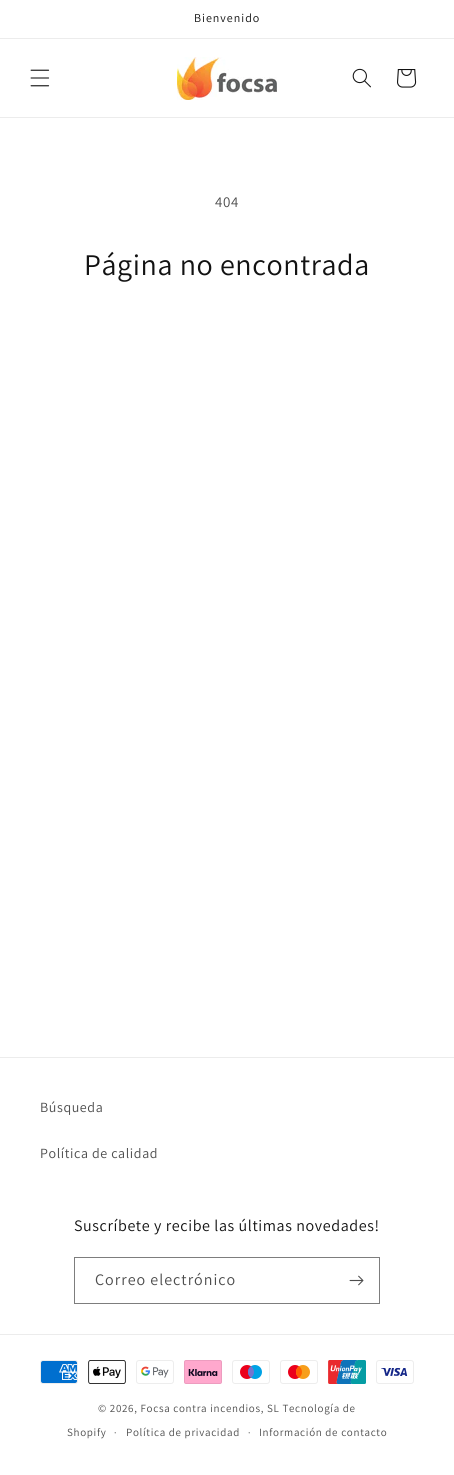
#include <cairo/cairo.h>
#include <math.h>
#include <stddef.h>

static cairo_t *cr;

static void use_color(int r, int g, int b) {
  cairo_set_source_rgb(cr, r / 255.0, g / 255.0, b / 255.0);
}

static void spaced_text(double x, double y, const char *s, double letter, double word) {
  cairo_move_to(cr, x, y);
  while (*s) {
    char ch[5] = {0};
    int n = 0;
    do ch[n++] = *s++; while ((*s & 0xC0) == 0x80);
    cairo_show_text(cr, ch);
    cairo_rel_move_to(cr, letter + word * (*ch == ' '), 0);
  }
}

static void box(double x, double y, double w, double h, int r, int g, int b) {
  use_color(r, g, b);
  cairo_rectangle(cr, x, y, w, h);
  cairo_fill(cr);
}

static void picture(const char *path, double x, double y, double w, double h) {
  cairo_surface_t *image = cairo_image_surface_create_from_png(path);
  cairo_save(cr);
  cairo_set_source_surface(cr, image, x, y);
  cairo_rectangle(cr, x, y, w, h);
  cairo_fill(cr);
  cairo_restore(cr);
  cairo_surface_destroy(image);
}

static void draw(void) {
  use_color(255, 255, 255);
  cairo_paint(cr);
  box(0, 38, 454, 1, 236, 236, 236);
  box(0, 117, 454, 1, 236, 236, 236);
  picture("img_01.png", 30, 69, 20, 18);
  picture("img_02.png", 177, 57, 100, 43);
  picture("img_03.png", 352, 68, 19, 20);
  picture("img_04.png", 397, 69, 20, 19);
  box(0, 1057, 454, 1, 236, 236, 236);
  cairo_rectangle(cr, 74.5, 1257.5, 305, 46);
  use_color(125, 125, 125);
  cairo_set_line_width(cr, 1);
  cairo_stroke(cr);
  picture("img_05.png", 349, 1275, 15, 11);
  box(0, 1334, 454, 1, 236, 236, 236);
  picture("img_06.png", 40, 1360, 38, 24);
  picture("img_07.png", 88, 1360, 38, 24);
  picture("img_08.png", 136, 1360, 38, 24);
  picture("img_09.png", 184, 1360, 38, 24);
  picture("img_10.png", 232, 1360, 38, 24);
  picture("img_11.png", 280, 1360, 38, 24);
  picture("img_12.png", 328, 1360, 38, 24);
  picture("img_13.png", 376, 1360, 38, 24);
  cairo_select_font_face(cr, "Assistant", CAIRO_FONT_SLANT_NORMAL, CAIRO_FONT_WEIGHT_NORMAL);
  cairo_set_font_size(cr, 12);
  use_color(18, 18, 18);
  spaced_text(194, 22, "Bienvenido", 1, 0);
  cairo_set_font_size(cr, 15);
  use_color(77, 77, 77);
  spaced_text(215, 207, "404", 0.6, 0);
  cairo_set_font_size(cr, 30);
  use_color(18, 18, 18);
  spaced_text(84, 275, "Página no encontrada", 0.6, 0);
  cairo_set_font_size(cr, 14);
  use_color(77, 77, 77);
  spaced_text(40, 1112, "Búsqueda", 0.6, 0);
  spaced_text(40, 1158, "Política de calidad", 0.6, 0);
  cairo_set_font_size(cr, 16);
  use_color(18, 18, 18);
  spaced_text(74, 1231, "Suscríbete y recibe las últimas novedades!", 0.6, 0);
  use_color(77, 77, 77);
  spaced_text(95, 1285, "Correo electrónico", 1, 0);
  cairo_set_font_size(cr, 11);
  spaced_text(98, 1412, "© 2026, Focsa contra incendios, SL Tecnología de", 0.7, 0);
  spaced_text(67, 1436, "Shopify", 0.7, 0);
  cairo_set_font_size(cr, 10);
  spaced_text(114, 1436, "·", 0.7, 0);
  cairo_set_font_size(cr, 11);
  spaced_text(126, 1436, "Política de privacidad", 0.7, 0);
  cairo_set_font_size(cr, 10);
  spaced_text(248, 1436, "·", 0.7, 0);
  cairo_set_font_size(cr, 11);
  spaced_text(259, 1436, "Información de contacto", 0.7, 0);
}

int main(void) {
  cairo_surface_t *surface = cairo_image_surface_create(CAIRO_FORMAT_RGB24, 454, 1475);
  cr = cairo_create(surface);
  cairo_font_options_t *options = cairo_font_options_create();
  cairo_font_options_set_hint_metrics(options, CAIRO_HINT_METRICS_OFF);
  cairo_font_options_set_hint_style(options, CAIRO_HINT_STYLE_NONE);
  cairo_set_font_options(cr, options);
  cairo_set_miter_limit(cr, 4);
  draw();
  cairo_surface_write_to_png(surface, "out.png");
  cairo_font_options_destroy(options);
  cairo_destroy(cr);
  cairo_surface_destroy(surface);
  return 0;
}
